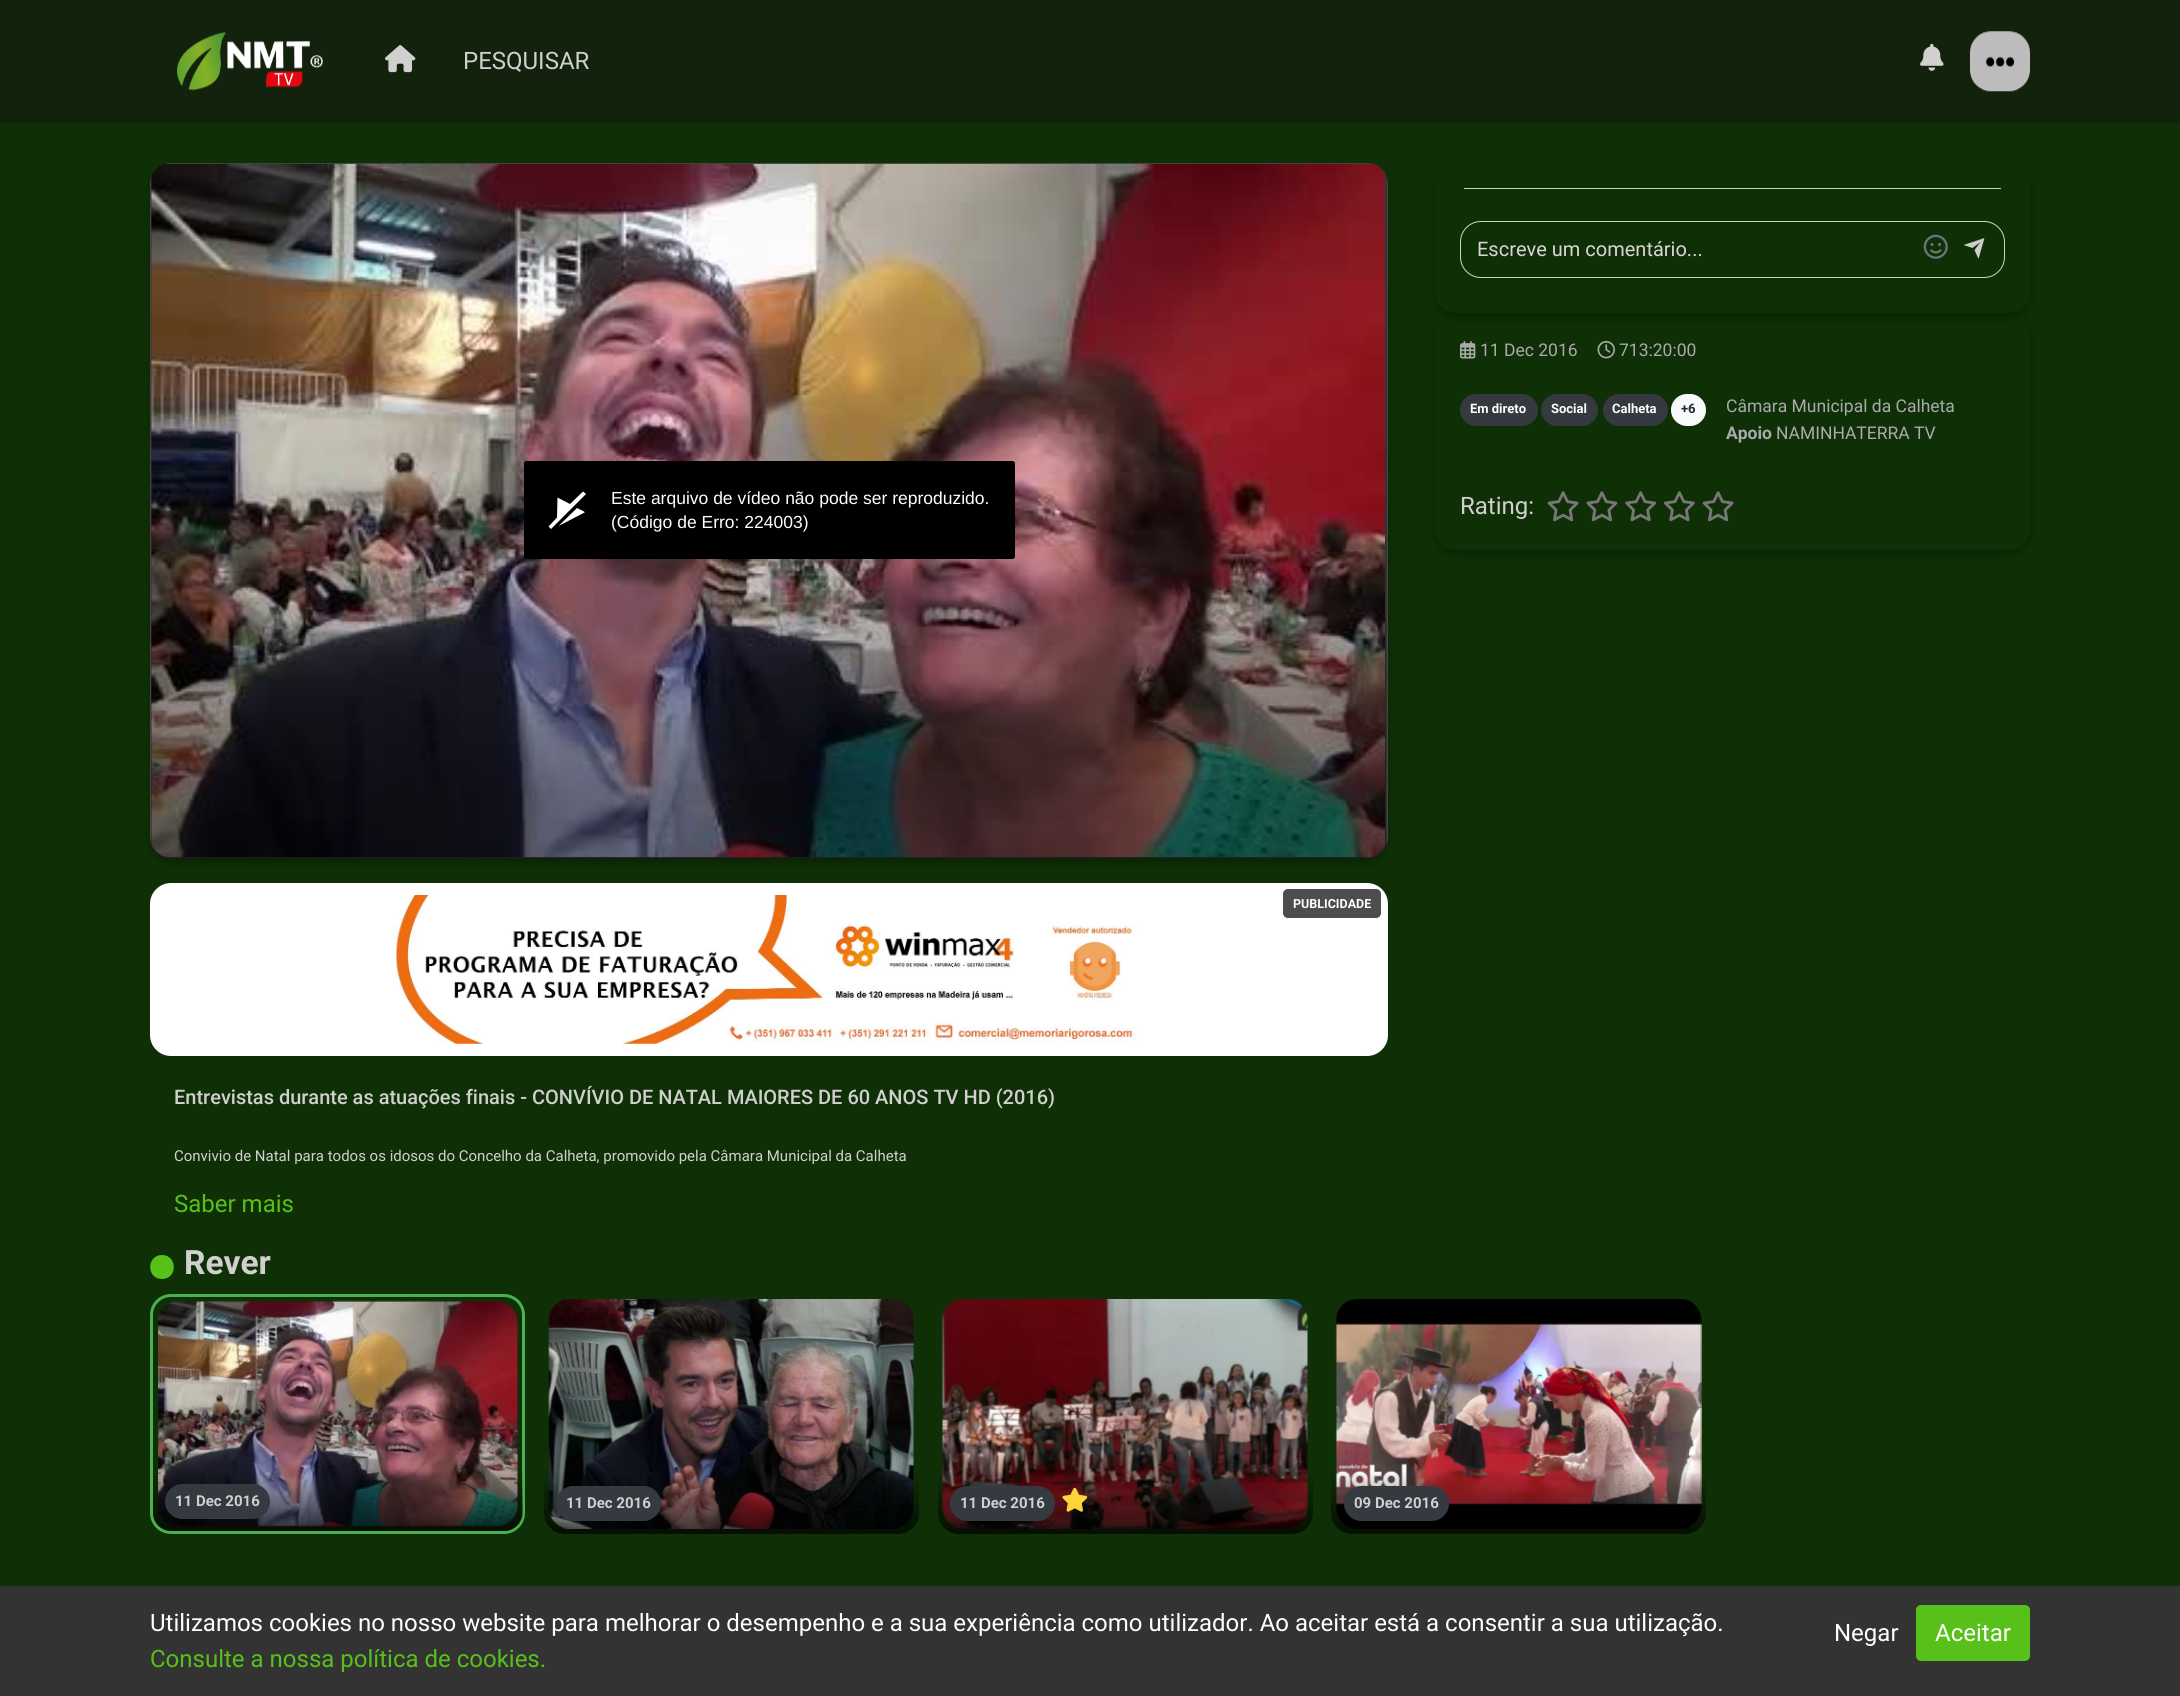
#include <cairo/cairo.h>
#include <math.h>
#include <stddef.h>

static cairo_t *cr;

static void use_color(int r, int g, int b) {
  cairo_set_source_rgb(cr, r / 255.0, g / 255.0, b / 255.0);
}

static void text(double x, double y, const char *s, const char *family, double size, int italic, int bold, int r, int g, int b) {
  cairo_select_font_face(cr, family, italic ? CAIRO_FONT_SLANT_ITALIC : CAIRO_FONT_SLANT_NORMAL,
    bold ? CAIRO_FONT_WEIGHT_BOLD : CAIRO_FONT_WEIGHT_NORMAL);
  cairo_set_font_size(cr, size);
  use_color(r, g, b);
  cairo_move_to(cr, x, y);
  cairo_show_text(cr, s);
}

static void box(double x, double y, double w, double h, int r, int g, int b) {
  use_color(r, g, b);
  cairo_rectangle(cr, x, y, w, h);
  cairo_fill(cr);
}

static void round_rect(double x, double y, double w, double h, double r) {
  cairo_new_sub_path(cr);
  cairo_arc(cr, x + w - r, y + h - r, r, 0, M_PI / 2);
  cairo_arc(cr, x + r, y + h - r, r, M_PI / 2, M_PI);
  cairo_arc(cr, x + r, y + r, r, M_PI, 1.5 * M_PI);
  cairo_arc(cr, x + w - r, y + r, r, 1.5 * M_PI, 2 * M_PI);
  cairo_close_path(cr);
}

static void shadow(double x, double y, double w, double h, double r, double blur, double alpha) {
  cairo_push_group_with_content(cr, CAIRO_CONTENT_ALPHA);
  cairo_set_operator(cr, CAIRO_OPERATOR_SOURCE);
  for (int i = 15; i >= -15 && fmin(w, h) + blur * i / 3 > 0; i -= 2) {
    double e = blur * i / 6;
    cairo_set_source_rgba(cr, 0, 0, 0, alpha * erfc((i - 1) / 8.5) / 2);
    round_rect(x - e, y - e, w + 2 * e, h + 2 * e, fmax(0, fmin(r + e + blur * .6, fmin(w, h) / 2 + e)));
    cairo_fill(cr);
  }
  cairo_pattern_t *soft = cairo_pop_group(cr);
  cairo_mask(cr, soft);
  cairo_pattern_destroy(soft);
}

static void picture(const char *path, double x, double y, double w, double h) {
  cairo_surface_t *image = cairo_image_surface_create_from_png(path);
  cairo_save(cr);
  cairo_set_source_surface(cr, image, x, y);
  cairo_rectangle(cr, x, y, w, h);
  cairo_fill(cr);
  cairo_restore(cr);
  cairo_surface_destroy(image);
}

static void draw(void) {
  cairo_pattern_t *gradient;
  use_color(15, 48, 6);
  cairo_paint(cr);
  box(0, 0, 2180, 123, 18, 34, 13);
  picture("img_01.png", 177, 32, 146, 59);
  picture("img_02.png", 385, 45, 31, 28);
  picture("img_03.png", 1920, 43, 24, 28);
  picture("img_04.png", 1970, 31, 60, 61);
  cairo_save(cr);
  cairo_set_fill_rule(cr, CAIRO_FILL_RULE_EVEN_ODD);
  cairo_new_path(cr);
  cairo_move_to(cr, 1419, 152);
  cairo_line_to(cr, 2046, 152);
  cairo_line_to(cr, 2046, 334);
  cairo_line_to(cr, 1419, 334);
  cairo_close_path(cr);
  cairo_move_to(cr, 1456, 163);
  cairo_line_to(cr, 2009, 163);
  cairo_curve_to(cr, 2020.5, 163, 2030, 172.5, 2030, 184);
  cairo_line_to(cr, 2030, 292);
  cairo_curve_to(cr, 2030, 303.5, 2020.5, 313, 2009, 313);
  cairo_line_to(cr, 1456, 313);
  cairo_curve_to(cr, 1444.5, 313, 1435, 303.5, 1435, 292);
  cairo_line_to(cr, 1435, 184);
  cairo_curve_to(cr, 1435, 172.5, 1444.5, 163, 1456, 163);
  cairo_close_path(cr);
  cairo_clip(cr);
  use_color(0, 0, 0);
  shadow(1435, 168, 595, 150, 21, 5, 0.3);
  cairo_restore(cr);
  box(1464, 188, 537, 1, 204, 204, 204);
  round_rect(1460.5, 221.5, 544, 56, 20.5);
  use_color(209, 208, 207);
  cairo_set_line_width(cr, 1);
  cairo_stroke(cr);
  picture("img_05.png", 1923, 234, 25, 25);
  picture("img_06.png", 1964, 238, 21, 21);
  cairo_save(cr);
  cairo_set_fill_rule(cr, CAIRO_FILL_RULE_EVEN_ODD);
  cairo_new_path(cr);
  cairo_move_to(cr, 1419, 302);
  cairo_line_to(cr, 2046, 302);
  cairo_line_to(cr, 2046, 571);
  cairo_line_to(cr, 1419, 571);
  cairo_close_path(cr);
  cairo_move_to(cr, 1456, 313);
  cairo_line_to(cr, 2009, 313);
  cairo_curve_to(cr, 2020.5, 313, 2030, 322.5, 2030, 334);
  cairo_line_to(cr, 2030, 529);
  cairo_curve_to(cr, 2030, 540.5, 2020.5, 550, 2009, 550);
  cairo_line_to(cr, 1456, 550);
  cairo_curve_to(cr, 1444.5, 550, 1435, 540.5, 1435, 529);
  cairo_line_to(cr, 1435, 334);
  cairo_curve_to(cr, 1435, 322.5, 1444.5, 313, 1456, 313);
  cairo_close_path(cr);
  cairo_clip(cr);
  use_color(0, 0, 0);
  shadow(1435, 318, 595, 237, 21, 5, 0.3);
  cairo_restore(cr);
  picture("img_07.png", 1460, 341, 16, 18);
  picture("img_08.png", 1597, 340, 18, 19);
  use_color(52, 58, 64);
  round_rect(1460, 394, 78, 32, 16);
  cairo_fill(cr);
  round_rect(1541, 394, 57, 32, 16);
  cairo_fill(cr);
  round_rect(1603, 394, 65, 32, 16);
  cairo_fill(cr);
  use_color(248, 249, 250);
  round_rect(1671, 394, 35, 32, 16);
  cairo_fill(cr);
  picture("img_09.png", 1547, 491, 32, 31);
  picture("img_10.png", 1586, 491, 32, 31);
  picture("img_11.png", 1625, 491, 31, 31);
  picture("img_12.png", 1664, 491, 31, 31);
  picture("img_09.png", 1702, 491, 32, 31);
  use_color(0, 0, 0);
  shadow(150, 168, 1238, 695, 21, 5, 0.3);
  use_color(51, 51, 51);
  round_rect(150, 163, 1238, 695, 21);
  cairo_fill(cr);
  use_color(68, 68, 68);
  cairo_set_fill_rule(cr, CAIRO_FILL_RULE_EVEN_ODD);
  cairo_new_path(cr);
  cairo_move_to(cr, 150, 184);
  cairo_line_to(cr, 150, 837);
  cairo_line_to(cr, 151, 843);
  cairo_line_to(cr, 151, 178);
  cairo_close_path(cr);
  cairo_move_to(cr, 171, 163);
  cairo_line_to(cr, 165, 164);
  cairo_line_to(cr, 1373, 164);
  cairo_line_to(cr, 1367, 163);
  cairo_close_path(cr);
  cairo_move_to(cr, 1388, 184);
  cairo_line_to(cr, 1387, 178);
  cairo_line_to(cr, 1387, 843);
  cairo_line_to(cr, 1388, 837);
  cairo_close_path(cr);
  cairo_fill(cr);
  cairo_save(cr);
  cairo_set_fill_rule(cr, CAIRO_FILL_RULE_WINDING);
  round_rect(150, 163, 1238, 695, 21);
  cairo_clip(cr);
  box(151, 164, 1235, 694, 51, 51, 51);
  cairo_restore(cr);
  picture("img_13.png", 151, 163, 1234, 695);
  cairo_save(cr);
  cairo_set_fill_rule(cr, CAIRO_FILL_RULE_WINDING);
  round_rect(150, 163, 1238, 695, 21);
  cairo_clip(cr);
  gradient = cairo_pattern_create_linear(769, 557, 769, 858);
  cairo_pattern_add_color_stop_rgba(gradient, 0, 0, 0, 0, 0);
  cairo_pattern_add_color_stop_rgba(gradient, 0.77, 0, 0, 0, 0.4);
  cairo_pattern_add_color_stop_rgba(gradient, 1, 0, 0, 0, 0.4);
  cairo_set_source(cr, gradient);
  cairo_pattern_destroy(gradient);
  cairo_rectangle(cr, 151, 570, 1235, 288);
  cairo_fill(cr);
  cairo_restore(cr);
  use_color(0, 0, 0);
  round_rect(524, 461, 491, 98, 2.5);
  cairo_fill(cr);
  use_color(255, 255, 255);
  cairo_set_fill_rule(cr, CAIRO_FILL_RULE_WINDING);
  cairo_new_path(cr);
  cairo_move_to(cr, 584.5, 512.5);
  cairo_line_to(cr, 558.5, 526);
  cairo_line_to(cr, 577, 508);
  cairo_curve_to(cr, 584, 511.5, 585.5, 512, 584.5, 512.5);
  cairo_close_path(cr);
  cairo_move_to(cr, 583, 491.5);
  cairo_line_to(cr, 570, 504);
  cairo_line_to(cr, 557.5, 497.5);
  cairo_line_to(cr, 557, 517.5);
  cairo_line_to(cr, 548.5, 526.5);
  cairo_line_to(cr, 551, 529);
  cairo_line_to(cr, 586, 494);
  cairo_close_path(cr);
  cairo_fill(cr);
  round_rect(150, 883, 1238, 173, 21);
  cairo_fill(cr);
  picture("img_14.png", 392, 895, 745, 149);
  use_color(77, 77, 77);
  round_rect(1283, 889, 98, 29, 5);
  cairo_fill(cr);
  use_color(88, 193, 25);
  cairo_new_path(cr);
  cairo_move_to(cr, 162, 1279);
  cairo_curve_to(cr, 178, 1279, 177.5, 1255, 162, 1255);
  cairo_curve_to(cr, 146.5, 1255, 146, 1279, 162, 1279);
  cairo_close_path(cr);
  cairo_fill(cr);
  round_rect(151.5, 1295.5, 372, 237, 19.5);
  use_color(76, 175, 80);
  cairo_set_line_width(cr, 3);
  cairo_stroke(cr);
  picture("img_15.png", 158, 1300, 360, 227);
  gradient = cairo_pattern_create_linear(338, 1469, 338, 1531);
  cairo_pattern_add_color_stop_rgba(gradient, 0, 0, 0, 0, 0);
  cairo_pattern_add_color_stop_rgba(gradient, 1, 0, 0, 0, 0.7);
  cairo_set_source(cr, gradient);
  cairo_pattern_destroy(gradient);
  cairo_new_path(cr);
  cairo_move_to(cr, 153, 1469);
  cairo_line_to(cr, 523, 1469);
  cairo_line_to(cr, 523, 1512);
  cairo_curve_to(cr, 523, 1522.5, 514.5, 1531, 504, 1531);
  cairo_line_to(cr, 172, 1531);
  cairo_curve_to(cr, 161.5, 1531, 153, 1522.5, 153, 1512);
  cairo_close_path(cr);
  cairo_fill(cr);
  use_color(52, 58, 64);
  round_rect(165, 1484, 105, 35, 17.5);
  cairo_fill(cr);
  picture("img_16.png", 548, 1299, 366, 230);
  gradient = cairo_pattern_create_linear(731, 1471, 731, 1534);
  cairo_pattern_add_color_stop_rgba(gradient, 0, 0, 0, 0, 0);
  cairo_pattern_add_color_stop_rgba(gradient, 1, 0, 0, 0, 0.7);
  cairo_set_source(cr, gradient);
  cairo_pattern_destroy(gradient);
  cairo_new_path(cr);
  cairo_move_to(cr, 544, 1471);
  cairo_line_to(cr, 919, 1471);
  cairo_line_to(cr, 919, 1513);
  cairo_curve_to(cr, 919, 1524.5, 909.5, 1534, 898, 1534);
  cairo_line_to(cr, 565, 1534);
  cairo_curve_to(cr, 553.5, 1534, 544, 1524.5, 544, 1513);
  cairo_close_path(cr);
  cairo_fill(cr);
  use_color(52, 58, 64);
  round_rect(556, 1486, 105, 35, 17.5);
  cairo_fill(cr);
  picture("img_17.png", 942, 1299, 366, 230);
  gradient = cairo_pattern_create_linear(1125, 1471, 1125, 1534);
  cairo_pattern_add_color_stop_rgba(gradient, 0, 0, 0, 0, 0);
  cairo_pattern_add_color_stop_rgba(gradient, 1, 0, 0, 0, 0.7);
  cairo_set_source(cr, gradient);
  cairo_pattern_destroy(gradient);
  cairo_new_path(cr);
  cairo_move_to(cr, 938, 1471);
  cairo_line_to(cr, 1313, 1471);
  cairo_line_to(cr, 1313, 1513);
  cairo_curve_to(cr, 1313, 1524.5, 1303.5, 1534, 1292, 1534);
  cairo_line_to(cr, 959, 1534);
  cairo_curve_to(cr, 947.5, 1534, 938, 1524.5, 938, 1513);
  cairo_close_path(cr);
  cairo_fill(cr);
  use_color(52, 58, 64);
  round_rect(950, 1486, 105, 35, 17.5);
  cairo_fill(cr);
  picture("img_18.png", 1062, 1487, 26, 25);
  picture("img_19.png", 1335, 1299, 367, 230);
  gradient = cairo_pattern_create_linear(1519, 1471, 1519, 1534);
  cairo_pattern_add_color_stop_rgba(gradient, 0, 0, 0, 0, 0);
  cairo_pattern_add_color_stop_rgba(gradient, 1, 0, 0, 0, 0.7);
  cairo_set_source(cr, gradient);
  cairo_pattern_destroy(gradient);
  cairo_new_path(cr);
  cairo_move_to(cr, 1331, 1471);
  cairo_line_to(cr, 1706, 1471);
  cairo_line_to(cr, 1706, 1513);
  cairo_curve_to(cr, 1706, 1524.5, 1696.5, 1534, 1685, 1534);
  cairo_line_to(cr, 1352, 1534);
  cairo_curve_to(cr, 1340.5, 1534, 1331, 1524.5, 1331, 1513);
  cairo_close_path(cr);
  cairo_fill(cr);
  use_color(52, 58, 64);
  round_rect(1344, 1486, 105, 35, 17.5);
  cairo_fill(cr);
  box(0, 1586, 2180, 110, 51, 51, 51);
  use_color(88, 193, 25);
  round_rect(1916, 1605, 114, 56, 5);
  cairo_fill(cr);
  text(463, 69, "PESQUISAR", "Roboto", 24, 0, 0, 209, 208, 207);
  text(1477, 256, "Escreve um comentário...", "Roboto", 20, 0, 0, 217, 213, 213);
  text(1480, 356, "11 Dec 2016", "Roboto", 17.5, 0, 0, 170, 170, 170);
  text(1619, 356, "713:20:00", "Roboto", 17.5, 0, 0, 170, 170, 170);
  text(1470, 413, "Em direto", "Roboto", 13, 0, 1, 255, 255, 255);
  text(1551, 413, "Social", "Roboto", 13, 0, 1, 255, 255, 255);
  text(1612, 413, "Calheta", "Roboto", 13, 0, 1, 255, 255, 255);
  text(1681, 413, "+6", "Roboto", 13, 0, 1, 33, 37, 41);
  text(1726, 412, "Câmara Municipal da Calheta", "Roboto", 17.5, 0, 0, 170, 170, 170);
  text(1726, 439, "Apoio", "Roboto", 17.5, 0, 1, 170, 170, 170);
  text(1776, 439, "NAMINHATERRA TV", "Roboto", 17.5, 0, 0, 170, 170, 170);
  text(1460, 514, "Rating:", "Roboto", 24, 0, 0, 209, 208, 207);
  text(611, 504, "Este arquivo de vídeo não pode ser reproduzido.", "Liberation Sans", 17.5, 0, 0, 255, 255, 255);
  text(611, 528, "(Código de Erro: 224003)", "Liberation Sans", 17.5, 0, 0, 255, 255, 255);
  text(1293, 908, "PUBLICIDADE", "Roboto", 12.5, 0, 1, 255, 255, 255);
  text(174, 1104, "Entrevistas durante as atuações finais - CONVÍVIO DE NATAL MAIORES DE 60 ANOS TV HD (2016)", "Roboto Medium", 20, 0, 0, 209, 208, 207);
  text(174, 1161, "Convivio de Natal para todos os idosos do Concelho da Calheta, promovido pela Câmara Municipal da Calheta", "Roboto", 15, 0, 0, 209, 208, 207);
  text(174, 1212, "Saber mais", "Roboto", 24, 0, 0, 88, 193, 25);
  text(184, 1274, "Rever", "Roboto", 33.5, 0, 1, 209, 208, 207);
  text(175, 1506, "11 Dec 2016", "Roboto", 15, 0, 1, 209, 208, 207);
  text(566, 1508, "11 Dec 2016", "Roboto", 15, 0, 1, 209, 208, 207);
  text(960, 1508, "11 Dec 2016", "Roboto", 15, 0, 1, 209, 208, 207);
  text(1354, 1508, "09 Dec 2016", "Roboto", 15, 0, 1, 209, 208, 207);
  text(150, 1631, "Utilizamos cookies no nosso website para melhorar o desempenho e a sua experiência como utilizador. Ao aceitar está a consentir a sua utilização.", "Roboto", 24, 0, 0, 255, 255, 255);
  text(150, 1667, "Consulte a nossa política de cookies.", "Roboto", 24, 0, 0, 88, 193, 25);
  text(1834, 1641, "Negar", "Roboto", 24, 0, 0, 255, 255, 255);
  text(1935, 1641, "Aceitar", "Roboto", 24, 0, 0, 255, 255, 255);
}

int main(void) {
  cairo_surface_t *surface = cairo_image_surface_create(CAIRO_FORMAT_RGB24, 2180, 1696);
  cr = cairo_create(surface);
  cairo_font_options_t *options = cairo_font_options_create();
  cairo_font_options_set_hint_metrics(options, CAIRO_HINT_METRICS_OFF);
  cairo_font_options_set_hint_style(options, CAIRO_HINT_STYLE_NONE);
  cairo_set_font_options(cr, options);
  cairo_set_miter_limit(cr, 4);
  draw();
  cairo_surface_write_to_png(surface, "out.png");
  cairo_font_options_destroy(options);
  cairo_destroy(cr);
  cairo_surface_destroy(surface);
  return 0;
}
